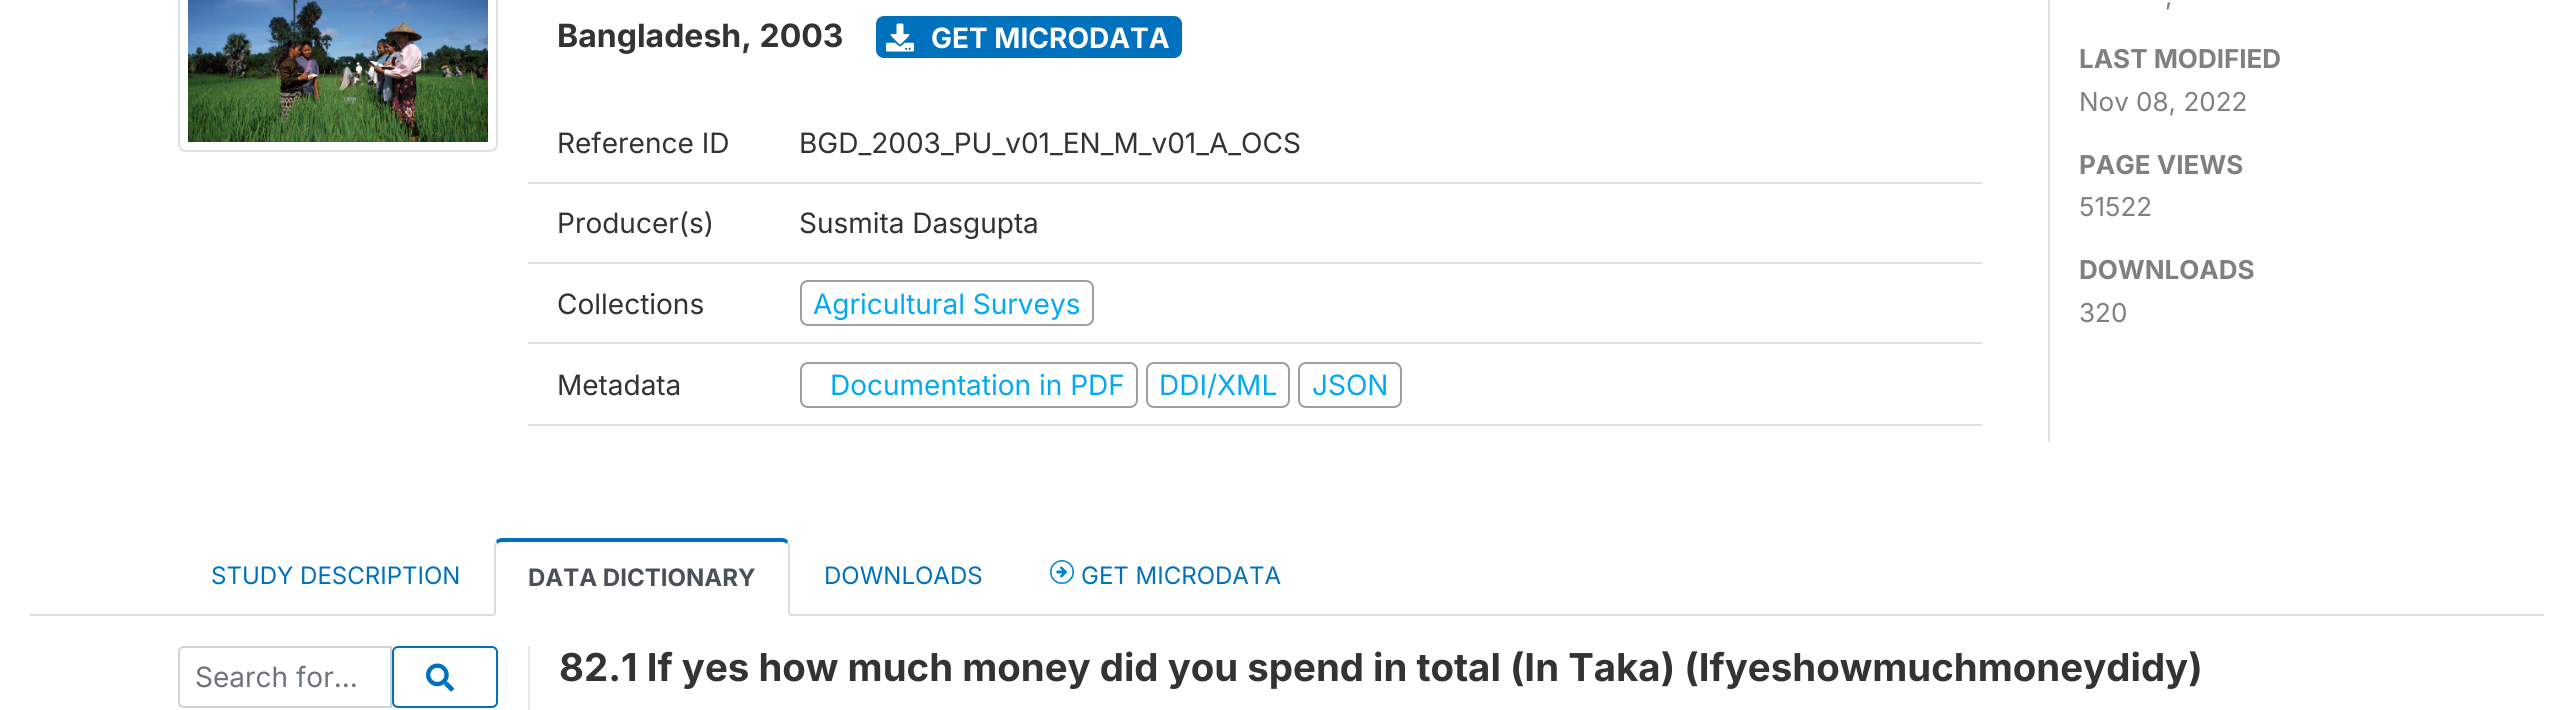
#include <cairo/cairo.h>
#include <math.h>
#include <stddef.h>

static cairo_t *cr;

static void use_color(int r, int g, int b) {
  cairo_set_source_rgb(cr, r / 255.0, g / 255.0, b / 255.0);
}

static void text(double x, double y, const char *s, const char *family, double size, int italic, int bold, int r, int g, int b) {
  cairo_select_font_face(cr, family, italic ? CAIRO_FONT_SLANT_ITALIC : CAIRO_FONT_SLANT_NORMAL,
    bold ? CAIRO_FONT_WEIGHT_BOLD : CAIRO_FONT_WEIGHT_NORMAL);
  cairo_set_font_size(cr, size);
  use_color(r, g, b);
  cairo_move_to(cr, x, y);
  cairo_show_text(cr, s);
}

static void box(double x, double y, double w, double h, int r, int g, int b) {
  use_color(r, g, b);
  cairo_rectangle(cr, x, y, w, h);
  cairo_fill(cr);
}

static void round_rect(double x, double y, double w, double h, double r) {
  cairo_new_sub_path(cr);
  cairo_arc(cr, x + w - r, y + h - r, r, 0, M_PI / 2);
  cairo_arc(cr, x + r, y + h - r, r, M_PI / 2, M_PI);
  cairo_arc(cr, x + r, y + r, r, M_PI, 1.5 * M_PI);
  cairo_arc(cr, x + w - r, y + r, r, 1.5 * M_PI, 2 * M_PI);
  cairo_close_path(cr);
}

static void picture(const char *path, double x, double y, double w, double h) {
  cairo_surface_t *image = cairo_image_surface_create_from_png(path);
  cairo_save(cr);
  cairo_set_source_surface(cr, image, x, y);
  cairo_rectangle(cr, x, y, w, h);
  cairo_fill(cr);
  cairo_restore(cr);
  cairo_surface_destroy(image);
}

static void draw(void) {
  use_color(255, 255, 255);
  cairo_paint(cr);
  box(30, 614, 2514, 2, 220, 220, 220);
  round_rect(179, -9, 318, 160, 7);
  use_color(222, 226, 230);
  cairo_stroke(cr);
  picture("img_01.png", 188, 0, 300, 142);
  use_color(0, 113, 189);
  round_rect(876, 16, 306, 42, 8);
  cairo_fill(cr);
  picture("img_02.png", 886, 23, 28, 29);
  box(528, 182, 1454, 2, 222, 226, 230);
  box(528, 262, 1454, 2, 222, 226, 230);
  box(528, 342, 1454, 2, 222, 226, 230);
  round_rect(801, 281, 292, 44, 7);
  use_color(158, 158, 158);
  cairo_stroke(cr);
  box(528, 424, 1454, 2, 222, 226, 230);
  round_rect(801, 363, 336, 44, 7);
  use_color(158, 158, 158);
  cairo_stroke(cr);
  round_rect(1147, 363, 142, 44, 7);
  cairo_stroke(cr);
  round_rect(1299, 363, 102, 44, 7);
  cairo_stroke(cr);
  box(2048, 0, 2, 442, 222, 226, 230);
  box(494, 614, 296, 2, 255, 255, 255);
  use_color(0, 113, 188);
  cairo_new_path(cr);
  cairo_move_to(cr, 502, 538);
  cairo_curve_to(cr, 500, 538, 497, 539, 496, 541);
  cairo_line_to(cr, 497, 544);
  cairo_curve_to(cr, 498, 543, 500, 542, 502, 542);
  cairo_line_to(cr, 782, 542);
  cairo_curve_to(cr, 784, 542, 786, 543, 787, 544);
  cairo_line_to(cr, 788, 541);
  cairo_curve_to(cr, 787, 539, 784, 538, 782, 538);
  cairo_close_path(cr);
  cairo_fill(cr);
  use_color(220, 220, 220);
  cairo_new_path(cr);
  cairo_move_to(cr, 790, 616);
  cairo_line_to(cr, 790, 546);
  cairo_curve_to(cr, 790, 544, 789, 543, 788, 541);
  cairo_line_to(cr, 787, 544);
  cairo_line_to(cr, 788, 546);
  cairo_line_to(cr, 788, 614);
  cairo_close_path(cr);
  cairo_fill(cr);
  use_color(255, 255, 255);
  cairo_new_path(cr);
  cairo_move_to(cr, 790, 616);
  cairo_line_to(cr, 788, 614);
  cairo_line_to(cr, 496, 614);
  cairo_line_to(cr, 494, 616);
  cairo_close_path(cr);
  cairo_fill(cr);
  use_color(220, 220, 220);
  cairo_new_path(cr);
  cairo_move_to(cr, 494, 616);
  cairo_line_to(cr, 496, 614);
  cairo_line_to(cr, 496, 546);
  cairo_line_to(cr, 497, 544);
  cairo_line_to(cr, 496, 541);
  cairo_curve_to(cr, 495, 543, 494, 544, 494, 546);
  cairo_close_path(cr);
  cairo_fill(cr);
  picture("img_03.png", 1050, 560, 24, 24);
  cairo_new_path(cr);
  cairo_move_to(cr, 184, 647);
  cairo_line_to(cr, 391, 647);
  cairo_line_to(cr, 391, 707);
  cairo_line_to(cr, 184, 707);
  cairo_curve_to(cr, 181, 707, 179, 705, 179, 702);
  cairo_line_to(cr, 179, 652);
  cairo_curve_to(cr, 179, 649, 181, 647, 184, 647);
  cairo_close_path(cr);
  use_color(206, 212, 218);
  cairo_stroke(cr);
  round_rect(393, 647, 104, 60, 5);
  use_color(0, 113, 189);
  cairo_stroke(cr);
  picture("img_04.png", 426, 663, 28, 29);
  box(528, 646, 2, 64, 232, 232, 232);
  text(557, 47, "Bangladesh, 2003", "Inter", 32, 0, 1, 51, 51, 51);
  text(931, 48, "GET MICRODATA", "Inter", 28, 0, 1, 255, 255, 255);
  text(557, 153, "Reference ID", "Inter", 28, 0, 0, 51, 51, 51);
  text(799, 153, "BGD_2003_PU_v01_EN_M_v01_A_OCS", "Inter", 28, 0, 0, 51, 51, 51);
  text(557, 233, "Producer(s)", "Inter", 28, 0, 0, 51, 51, 51);
  text(799, 233, "Susmita Dasgupta", "Inter", 28, 0, 0, 51, 51, 51);
  text(557, 314, "Collections", "Inter", 28, 0, 0, 51, 51, 51);
  text(813, 314, "Agricultural Surveys", "Inter", 28, 0, 0, 3, 169, 244);
  text(557, 395, "Metadata", "Inter", 28, 0, 0, 51, 51, 51);
  text(830, 395, "Documentation in PDF", "Inter", 28, 0, 0, 3, 169, 244);
  text(1159, 395, "DDI/XML", "Inter", 28, 0, 0, 3, 169, 244);
  text(1312, 395, "JSON", "Inter", 28, 0, 0, 3, 169, 244);
  text(2165, 5, ",", "Inter", 26, 0, 0, 128, 128, 128);
  text(2079, 68, "LAST MODIFIED", "Inter", 26, 0, 1, 128, 128, 128);
  text(2079, 111, "Nov 08, 2022", "Inter", 26, 0, 0, 128, 128, 128);
  text(2079, 174, "PAGE VIEWS", "Inter", 26, 0, 1, 128, 128, 128);
  text(2079, 216, "51522", "Inter", 26, 0, 0, 128, 128, 128);
  text(2079, 279, "DOWNLOADS", "Inter", 26, 0, 1, 128, 128, 128);
  text(2079, 322, "320", "Inter", 26, 0, 0, 128, 128, 128);
  text(211, 584, "STUDY DESCRIPTION", "Inter", 24, 0, 0, 0, 113, 189);
  text(528, 586, "DATA DICTIONARY", "Inter", 24, 0, 1, 73, 80, 87);
  text(824, 584, "DOWNLOADS", "Inter", 24, 0, 0, 0, 113, 189);
  text(1081, 584, "GET MICRODATA", "Inter", 24, 0, 0, 0, 113, 189);
  text(195, 687, "Search for...", "Inter", 28, 0, 0, 108, 117, 125);
  text(559, 681, "82.1 If yes how much money did you spend", "Inter", 38.4, 0, 1, 51, 51, 51);
  text(1373, 681, "in total (In Taka) (Ifyeshowmuchmoneydidy)", "Inter", 38.4, 0, 1, 51, 51, 51);
}

int main(void) {
  cairo_surface_t *surface = cairo_image_surface_create(CAIRO_FORMAT_RGB24, 2573, 710);
  cr = cairo_create(surface);
  cairo_font_options_t *options = cairo_font_options_create();
  cairo_font_options_set_hint_metrics(options, CAIRO_HINT_METRICS_OFF);
  cairo_font_options_set_hint_style(options, CAIRO_HINT_STYLE_NONE);
  cairo_set_font_options(cr, options);
  cairo_set_miter_limit(cr, 4);
  draw();
  cairo_surface_write_to_png(surface, "out.png");
  cairo_font_options_destroy(options);
  cairo_destroy(cr);
  cairo_surface_destroy(surface);
  return 0;
}
